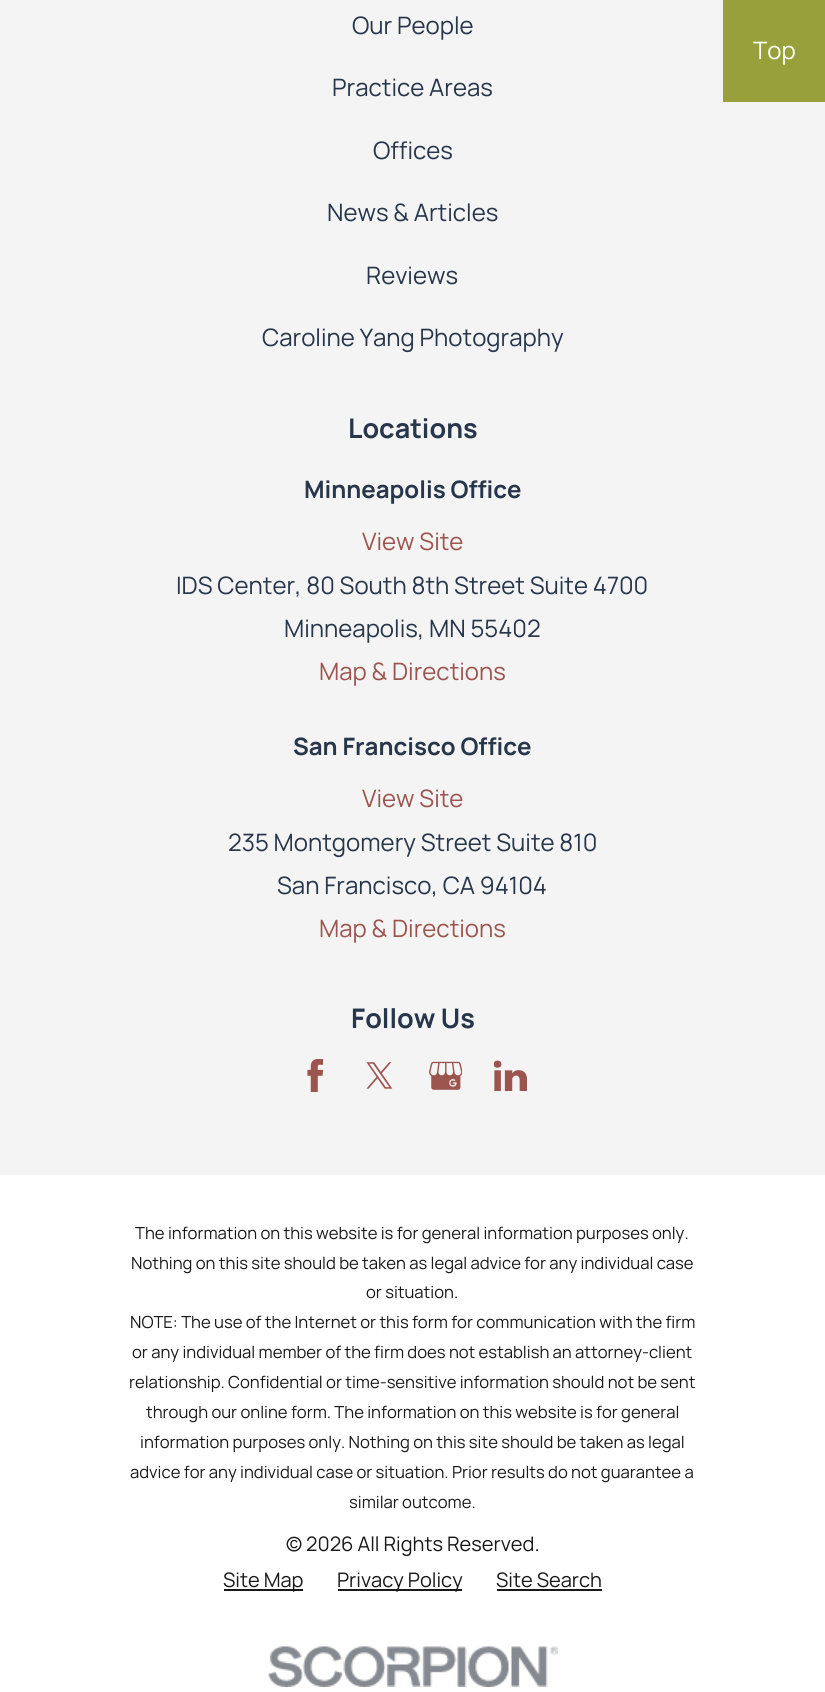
#include <cairo/cairo.h>
#include <math.h>
#include <stddef.h>

static cairo_t *cr;

static void use_color(int r, int g, int b) {
  cairo_set_source_rgb(cr, r / 255.0, g / 255.0, b / 255.0);
}

static void text(double x, double y, const char *s, const char *family, double size, int italic, int bold, int r, int g, int b) {
  cairo_select_font_face(cr, family, italic ? CAIRO_FONT_SLANT_ITALIC : CAIRO_FONT_SLANT_NORMAL,
    bold ? CAIRO_FONT_WEIGHT_BOLD : CAIRO_FONT_WEIGHT_NORMAL);
  cairo_set_font_size(cr, size);
  use_color(r, g, b);
  cairo_move_to(cr, x, y);
  cairo_show_text(cr, s);
}

static void box(double x, double y, double w, double h, int r, int g, int b) {
  use_color(r, g, b);
  cairo_rectangle(cr, x, y, w, h);
  cairo_fill(cr);
}

static void picture(const char *path, double x, double y, double w, double h) {
  cairo_surface_t *image = cairo_image_surface_create_from_png(path);
  cairo_save(cr);
  cairo_set_source_surface(cr, image, x, y);
  cairo_rectangle(cr, x, y, w, h);
  cairo_fill(cr);
  cairo_restore(cr);
  cairo_surface_destroy(image);
}

static void draw(void) {
  use_color(255, 255, 255);
  cairo_paint(cr);
  box(0, 0, 825, 1175, 244, 244, 244);
  picture("img_01.png", 307, 1059, 17, 33);
  picture("img_02.png", 366, 1062, 27, 27);
  picture("img_03.png", 429, 1061, 33, 29);
  picture("img_04.png", 494, 1060, 33, 31);
  box(224, 1589, 79, 2, 25, 25, 25);
  box(338, 1589, 124, 2, 25, 25, 25);
  box(497, 1589, 105, 2, 25, 25, 25);
  picture("img_05.png", 268, 1646, 290, 41);
  box(723, 0, 102, 102, 152, 160, 59);
  text(352, 34, "Our People", "Manrope", 24, 0, 0, 39, 54, 74);
  text(332, 96, "Practice Areas", "Manrope", 24, 0, 0, 39, 54, 74);
  text(373, 159, "Offices", "Manrope", 24, 0, 0, 39, 54, 74);
  text(327, 221, "News & Articles", "Manrope", 24, 0, 0, 39, 54, 74);
  text(366, 284, "Reviews", "Manrope", 24, 0, 0, 39, 54, 74);
  text(262, 346, "Caroline Yang Photography", "Manrope", 24, 0, 0, 39, 54, 74);
  text(348, 438, "Locations", "Manrope", 27, 0, 1, 39, 54, 74);
  text(304, 498, "Minneapolis Office", "Manrope", 24, 0, 1, 39, 54, 74);
  text(362, 550, "View Site", "Manrope", 24, 0, 0, 156, 84, 78);
  text(176, 594, "IDS Center, 80 South 8th Street Suite 4700", "Manrope", 24, 0, 0, 39, 54, 74);
  text(284, 637, "Minneapolis, MN 55402", "Manrope", 24, 0, 0, 39, 54, 74);
  text(319, 680, "Map & Directions", "Manrope", 24, 0, 0, 156, 84, 78);
  text(293, 755, "San Francisco Office", "Manrope", 24, 0, 1, 39, 54, 74);
  text(362, 807, "View Site", "Manrope", 24, 0, 0, 156, 84, 78);
  text(228, 851, "235 Montgomery Street Suite 810", "Manrope", 24, 0, 0, 39, 54, 74);
  text(277, 894, "San Francisco, CA 94104", "Manrope", 24, 0, 0, 39, 54, 74);
  text(319, 937, "Map & Directions", "Manrope", 24, 0, 0, 156, 84, 78);
  text(351, 1028, "Follow Us", "Manrope", 27, 0, 1, 39, 54, 74);
  text(135, 1239, "The information on this website is for general information purposes only.", "Manrope", 16.65, 0, 0, 25, 25, 25);
  text(131, 1269, "Nothing on this site should be taken as legal advice for any individual case", "Manrope", 16.65, 0, 0, 25, 25, 25);
  text(366, 1298, "or situation.", "Manrope", 16.65, 0, 0, 25, 25, 25);
  text(130, 1328, "NOTE: The use of the Internet or this form for communication with the firm", "Manrope", 16.65, 0, 0, 25, 25, 25);
  text(132, 1358, "or any individual member of the firm does not establish an attorney-client", "Manrope", 16.65, 0, 0, 25, 25, 25);
  text(129, 1388, "relationship. Confidential or time-sensitive information should not be sent", "Manrope", 16.65, 0, 0, 25, 25, 25);
  text(146, 1418, "through our online form. The information on this website is for general", "Manrope", 16.65, 0, 0, 25, 25, 25);
  text(140, 1448, "information purposes only. Nothing on this site should be taken as legal", "Manrope", 16.65, 0, 0, 25, 25, 25);
  text(130, 1478, "advice for any individual case or situation. Prior results do not guarantee a", "Manrope", 16.65, 0, 0, 25, 25, 25);
  text(349, 1508, "similar outcome.", "Manrope", 16.65, 0, 0, 25, 25, 25);
  text(286, 1551, "© 2026 All Rights Reserved.", "Manrope", 20, 0, 0, 25, 25, 25);
  text(223, 1587, "Site Map", "Manrope", 20, 0, 0, 25, 25, 25);
  text(337, 1587, "Privacy Policy", "Manrope", 20, 0, 0, 25, 25, 25);
  text(496, 1587, "Site Search", "Manrope", 20, 0, 0, 25, 25, 25);
  text(753, 59, "Top", "Manrope", 24, 0, 0, 255, 255, 255);
}

int main(void) {
  cairo_surface_t *surface = cairo_image_surface_create(CAIRO_FORMAT_RGB24, 825, 1692);
  cr = cairo_create(surface);
  cairo_font_options_t *options = cairo_font_options_create();
  cairo_font_options_set_hint_metrics(options, CAIRO_HINT_METRICS_OFF);
  cairo_font_options_set_hint_style(options, CAIRO_HINT_STYLE_NONE);
  cairo_set_font_options(cr, options);
  cairo_set_miter_limit(cr, 4);
  draw();
  cairo_surface_write_to_png(surface, "out.png");
  cairo_font_options_destroy(options);
  cairo_destroy(cr);
  cairo_surface_destroy(surface);
  return 0;
}
